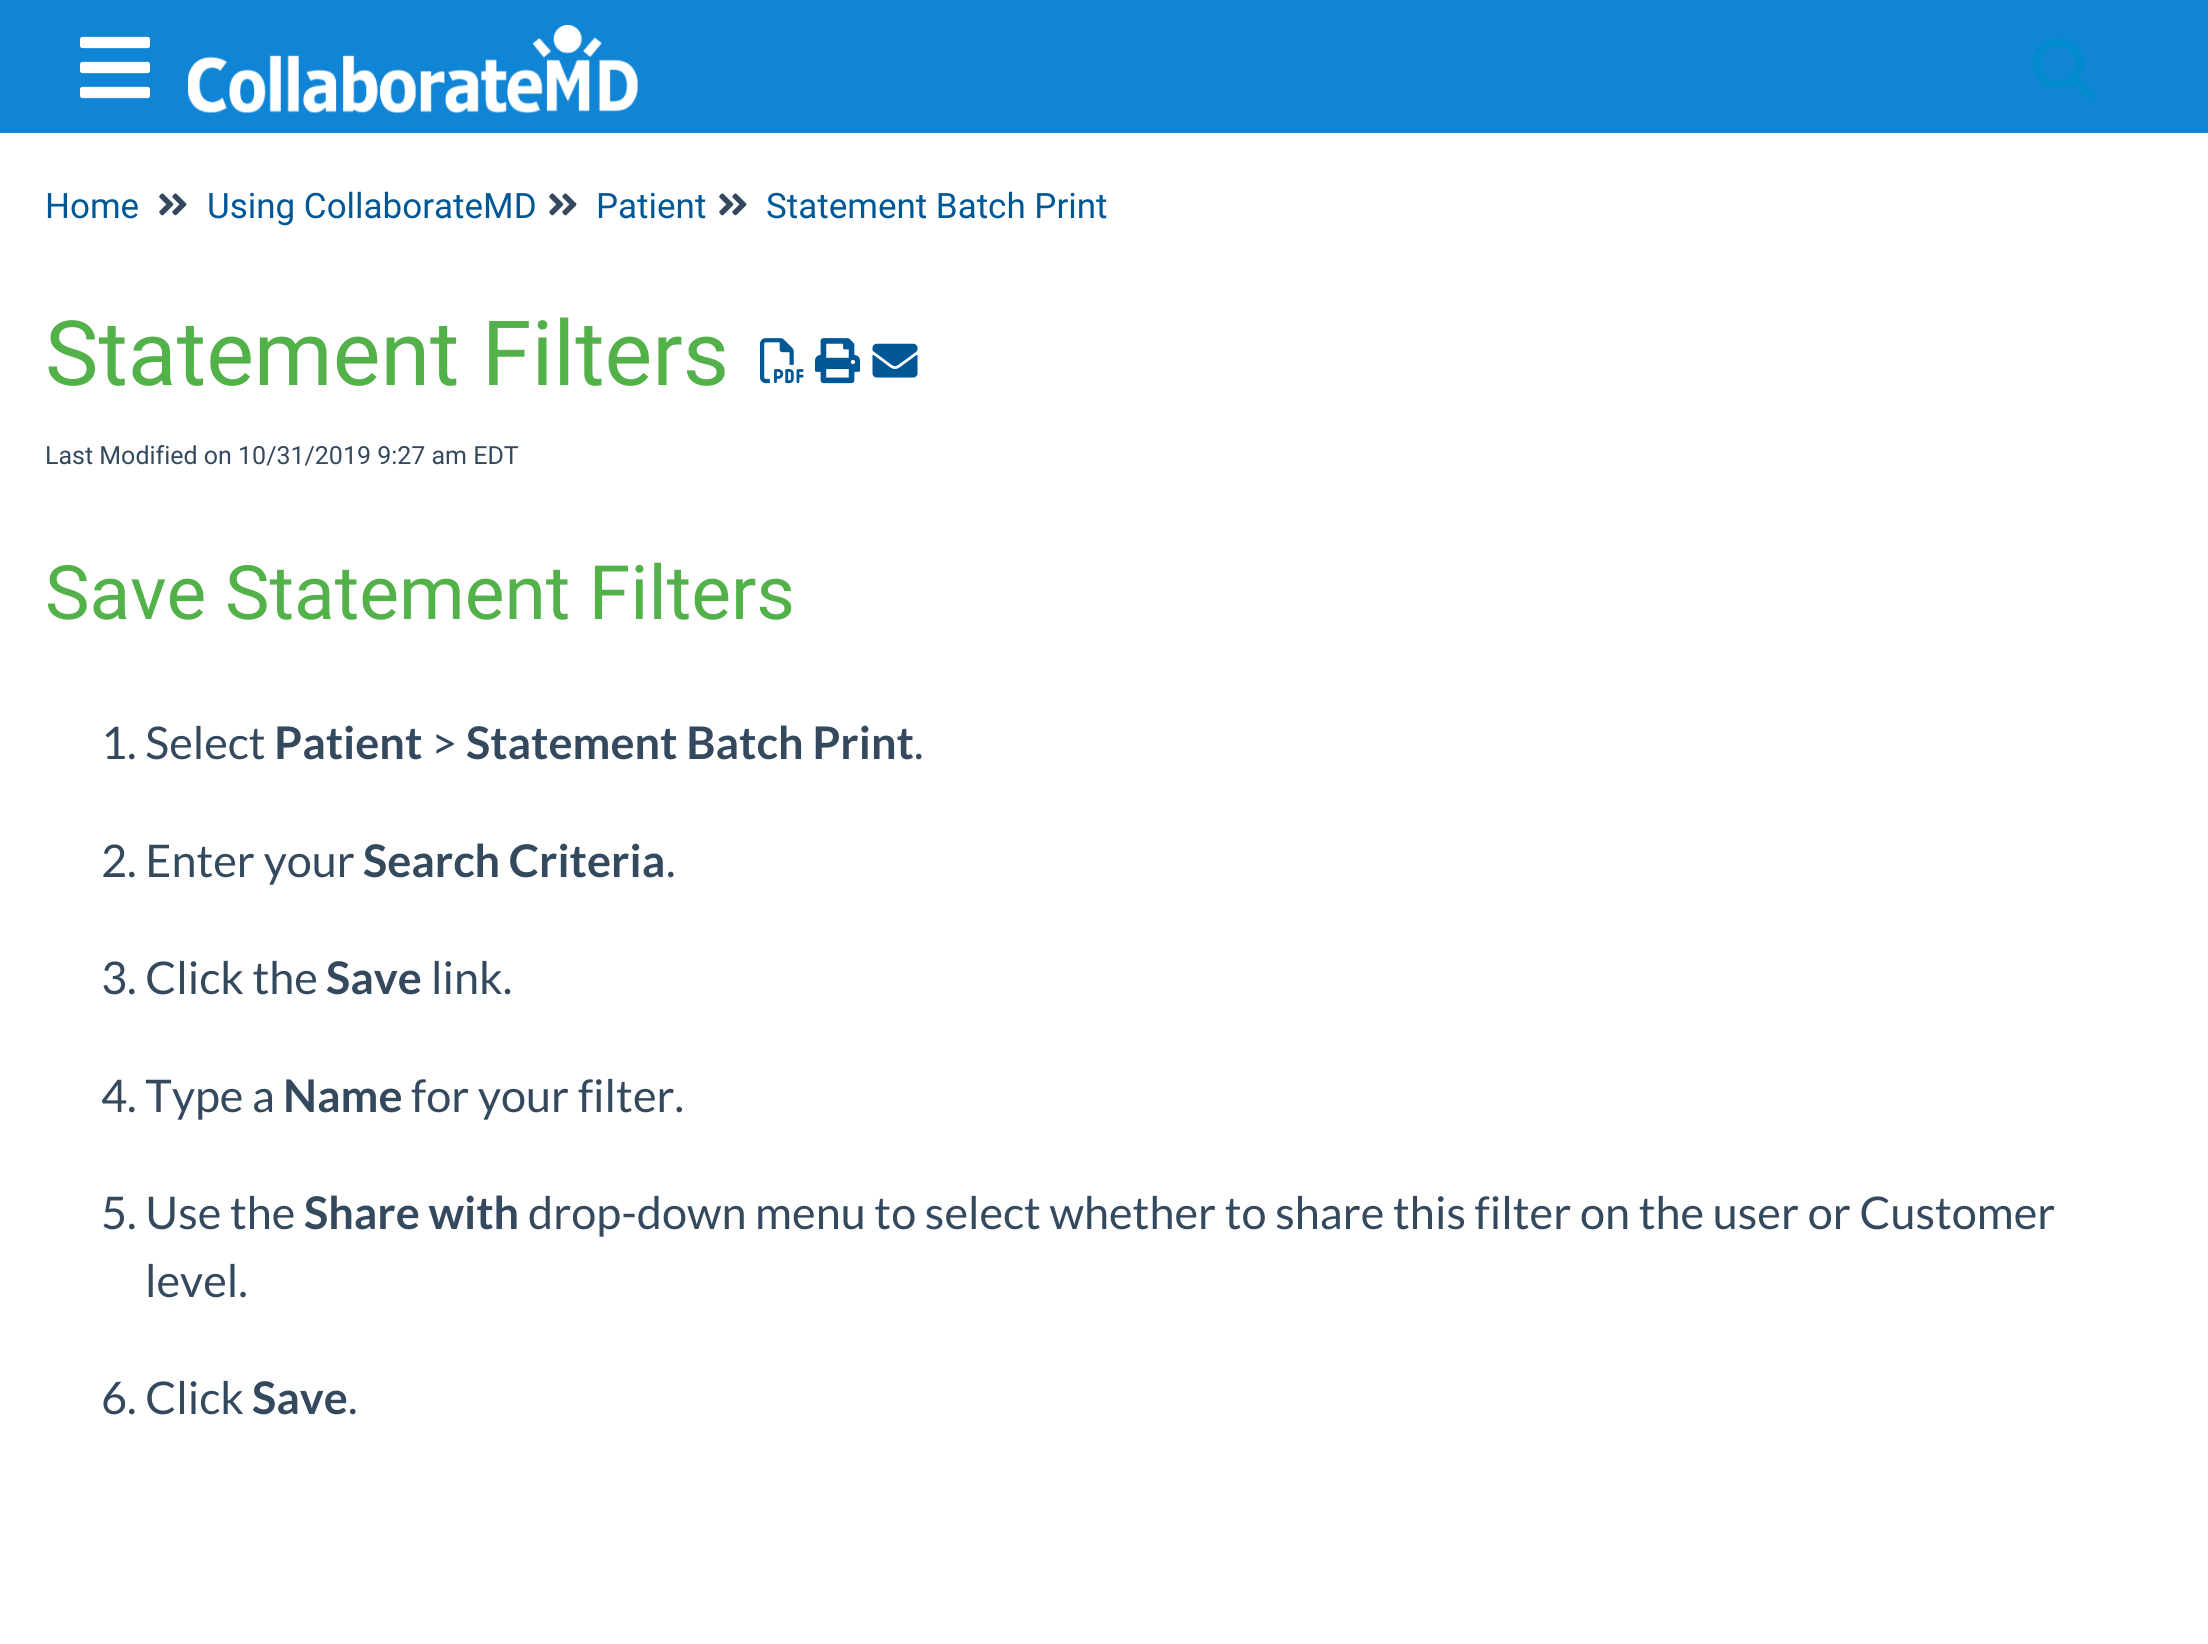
#include <cairo/cairo.h>
#include <math.h>
#include <stddef.h>

static cairo_t *cr;

static void use_color(int r, int g, int b) {
  cairo_set_source_rgb(cr, r / 255.0, g / 255.0, b / 255.0);
}

static void text(double x, double y, const char *s, const char *family, double size, int italic, int bold, int r, int g, int b) {
  cairo_select_font_face(cr, family, italic ? CAIRO_FONT_SLANT_ITALIC : CAIRO_FONT_SLANT_NORMAL,
    bold ? CAIRO_FONT_WEIGHT_BOLD : CAIRO_FONT_WEIGHT_NORMAL);
  cairo_set_font_size(cr, size);
  use_color(r, g, b);
  cairo_move_to(cr, x, y);
  cairo_show_text(cr, s);
}

static void box(double x, double y, double w, double h, int r, int g, int b) {
  use_color(r, g, b);
  cairo_rectangle(cr, x, y, w, h);
  cairo_fill(cr);
}

static void picture(const char *path, double x, double y, double w, double h) {
  cairo_surface_t *image = cairo_image_surface_create_from_png(path);
  cairo_save(cr);
  cairo_set_source_surface(cr, image, x, y);
  cairo_rectangle(cr, x, y, w, h);
  cairo_fill(cr);
  cairo_restore(cr);
  cairo_surface_destroy(image);
}

static void draw(void) {
  use_color(255, 255, 255);
  cairo_paint(cr);
  box(0, 0, 2208, 133, 16, 132, 213);
  picture("img_01.png", 80, 36, 70, 63);
  picture("img_02.png", 188, 25, 450, 88);
  picture("img_03.png", 2032, 38, 63, 62);
  picture("img_04.png", 159, 193, 28, 23);
  picture("img_04.png", 549, 193, 28, 23);
  picture("img_04.png", 719, 193, 28, 23);
  picture("img_05.png", 760, 338, 44, 46);
  picture("img_06.png", 815, 338, 45, 46);
  picture("img_07.png", 872, 343, 46, 35);
  text(45, 218, "Home", "Roboto", 35, 0, 0, 0, 87, 150);
  text(207, 218, "Using CollaborateMD", "Roboto", 35, 0, 0, 0, 87, 150);
  text(596, 218, "Patient", "Roboto", 35, 0, 0, 0, 87, 150);
  text(766, 218, "Statement Batch Print", "Roboto", 35, 0, 0, 0, 87, 150);
  text(45, 385, "Statement Filters", "Roboto", 90, 0, 0, 82, 177, 72);
  text(45, 464, "Last Modified on 10/31/2019 9:27 am EDT", "Roboto", 25, 0, 0, 52, 73, 94);
  text(45, 619, "Save Statement Filters", "Roboto", 75, 0, 0, 82, 177, 72);
  text(101, 759, "1. Select", "Lato", 45, 0, 0, 52, 73, 94);
  text(274, 759, "Patient", "Lato", 45, 0, 1, 52, 73, 94);
  text(431, 759, ">", "Lato", 45, 0, 0, 52, 73, 94);
  text(466, 759, "Statement Batch Print", "Lato", 45, 0, 1, 52, 73, 94);
  text(914, 759, ".", "Lato", 45, 0, 0, 52, 73, 94);
  text(101, 877, "2. Enter your", "Lato", 45, 0, 0, 52, 73, 94);
  text(363, 877, "Search Criteria", "Lato", 45, 0, 1, 52, 73, 94);
  text(666, 877, ".", "Lato", 45, 0, 0, 52, 73, 94);
  text(101, 994, "3. Click the", "Lato", 45, 0, 0, 52, 73, 94);
  text(326, 994, "Save", "Lato", 45, 0, 1, 52, 73, 94);
  text(431, 994, "link.", "Lato", 45, 0, 0, 52, 73, 94);
  text(101, 1112, "4. Type a", "Lato", 45, 0, 0, 52, 73, 94);
  text(283, 1112, "Name", "Lato", 45, 0, 1, 52, 73, 94);
  text(411, 1112, "for your filter.", "Lato", 45, 0, 0, 52, 73, 94);
  text(101, 1229, "5. Use the", "Lato", 45, 0, 0, 52, 73, 94);
  text(304, 1229, "Share with", "Lato", 45, 0, 1, 52, 73, 94);
  text(528, 1229, "drop-down menu to select whether to share this filter on the user or Customer", "Lato", 45, 0, 0, 52, 73, 94);
  text(145, 1297, "level.", "Lato", 45, 0, 0, 52, 73, 94);
  text(101, 1414, "6. Click", "Lato", 45, 0, 0, 52, 73, 94);
  text(252, 1414, "Save", "Lato", 45, 0, 1, 52, 73, 94);
  text(348, 1414, ".", "Lato", 45, 0, 0, 52, 73, 94);
}

int main(void) {
  cairo_surface_t *surface = cairo_image_surface_create(CAIRO_FORMAT_RGB24, 2208, 1644);
  cr = cairo_create(surface);
  cairo_font_options_t *options = cairo_font_options_create();
  cairo_font_options_set_hint_metrics(options, CAIRO_HINT_METRICS_OFF);
  cairo_font_options_set_hint_style(options, CAIRO_HINT_STYLE_NONE);
  cairo_set_font_options(cr, options);
  cairo_set_miter_limit(cr, 4);
  draw();
  cairo_surface_write_to_png(surface, "out.png");
  cairo_font_options_destroy(options);
  cairo_destroy(cr);
  cairo_surface_destroy(surface);
  return 0;
}
